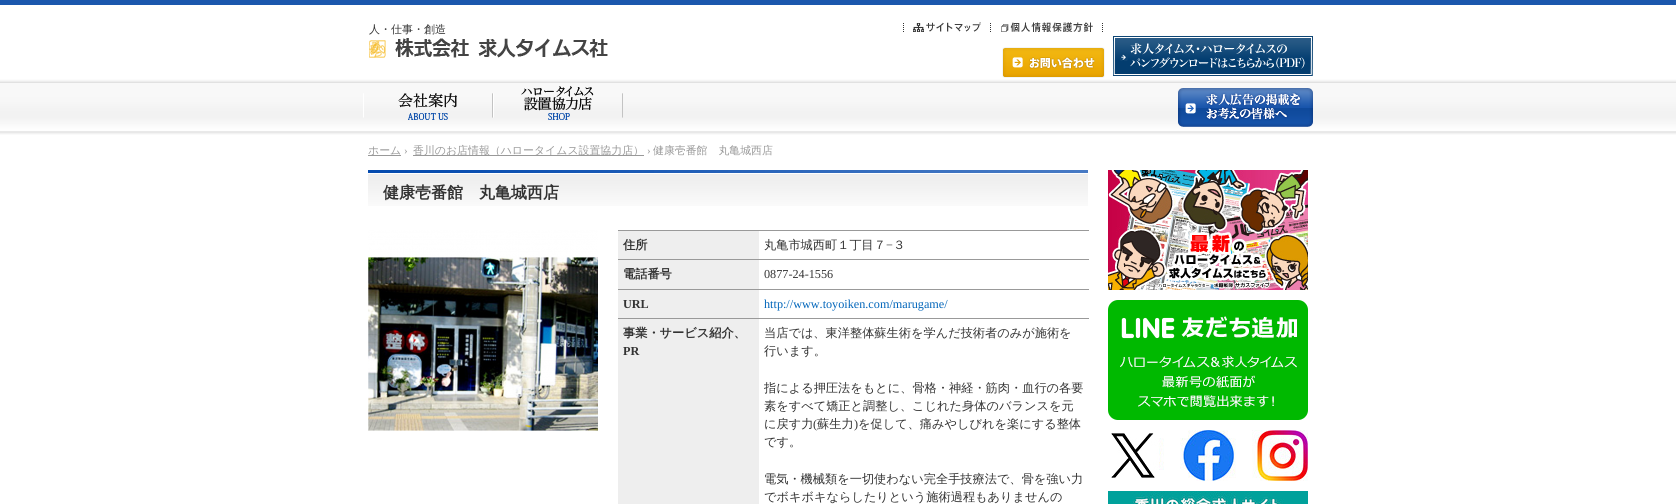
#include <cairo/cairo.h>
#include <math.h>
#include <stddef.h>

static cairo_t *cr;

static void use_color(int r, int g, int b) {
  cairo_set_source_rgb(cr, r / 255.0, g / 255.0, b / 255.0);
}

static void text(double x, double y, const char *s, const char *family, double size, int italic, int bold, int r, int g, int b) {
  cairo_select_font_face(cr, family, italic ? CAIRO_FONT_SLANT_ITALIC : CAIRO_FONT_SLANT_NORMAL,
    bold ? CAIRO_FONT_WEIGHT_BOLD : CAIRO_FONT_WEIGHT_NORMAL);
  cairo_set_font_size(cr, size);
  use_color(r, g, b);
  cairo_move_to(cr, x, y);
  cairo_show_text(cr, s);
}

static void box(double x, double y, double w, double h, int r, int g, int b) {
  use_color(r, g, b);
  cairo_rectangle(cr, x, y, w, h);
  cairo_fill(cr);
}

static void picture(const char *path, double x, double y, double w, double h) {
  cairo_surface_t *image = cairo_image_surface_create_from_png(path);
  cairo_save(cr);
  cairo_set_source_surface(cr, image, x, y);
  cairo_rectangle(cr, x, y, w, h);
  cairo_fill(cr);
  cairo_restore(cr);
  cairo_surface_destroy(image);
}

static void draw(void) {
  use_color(255, 255, 255);
  cairo_paint(cr);
  picture("img_01.png", 0, 0, 1676, 135);
  picture("img_02.png", 903, 23, 1, 9);
  picture("img_02.png", 990, 23, 1, 9);
  picture("img_03.png", 913, 22, 68, 10);
  picture("img_02.png", 1102, 23, 1, 9);
  picture("img_04.png", 1001, 22, 92, 10);
  picture("img_05.png", 369, 38, 239, 20);
  picture("img_06.png", 1002, 47, 103, 31);
  picture("img_07.png", 1113, 36, 200, 40);
  picture("img_08.png", 363, 93, 130, 27);
  picture("img_09.png", 493, 86, 130, 34);
  picture("img_10.png", 1178, 88, 135, 39);
  box(368, 155, 33, 1, 153, 153, 153);
  box(413, 155, 231, 1, 153, 153, 153);
  picture("img_11.png", 368, 170, 720, 36);
  picture("img_12.png", 368, 230, 230, 201);
  box(618, 230, 471, 1, 153, 153, 153);
  box(618, 231, 141, 28, 238, 238, 238);
  box(618, 260, 141, 29, 238, 238, 238);
  box(618, 259, 471, 1, 153, 153, 153);
  box(618, 290, 141, 28, 238, 238, 238);
  box(618, 289, 471, 1, 153, 153, 153);
  box(618, 319, 141, 185, 238, 238, 238);
  box(618, 318, 471, 1, 153, 153, 153);
  picture("img_13.png", 1108, 170, 200, 120);
  picture("img_14.png", 1108, 300, 200, 120);
  picture("img_15.png", 1111, 430, 197, 51);
  picture("img_16.png", 1108, 491, 200, 13);
  text(369, 33, "人・仕事・創造", "WenQuanYi Zen Hei Medium", 11, 0, 0, 51, 51, 51);
  text(368, 154, "ホーム", "WenQuanYi Zen Hei Medium", 10.9, 0, 0, 153, 153, 153);
  text(404, 154, "›", "Liberation Serif", 10.9, 0, 0, 153, 153, 153);
  text(413, 154, "香川のお店情報（ハロータイムス設置協力店）", "WenQuanYi Zen Hei Medium", 10.9, 0, 0, 153, 153, 153);
  text(647, 154, "›", "Liberation Serif", 10.9, 0, 0, 153, 153, 153);
  text(653, 154, "健康壱番館　丸亀城西店", "WenQuanYi Zen Hei Medium", 10.9, 0, 0, 153, 153, 153);
  text(383, 198, "健康壱番館　丸亀城西店", "WenQuanYi Zen Hei", 16, 0, 1, 51, 51, 51);
  text(623, 249, "住所", "WenQuanYi Zen Hei", 12.2, 0, 1, 51, 51, 51);
  text(764, 249, "丸亀市城西町１丁目７", "WenQuanYi Zen Hei Medium", 12.2, 0, 0, 51, 51, 51);
  text(886, 249, "−", "Liberation Serif", 12.2, 0, 0, 51, 51, 51);
  text(893, 249, "３", "WenQuanYi Zen Hei Medium", 12.2, 0, 0, 51, 51, 51);
  text(623, 278, "電話番号", "WenQuanYi Zen Hei", 12.2, 0, 1, 51, 51, 51);
  text(764, 278, "0877-24-1556", "Liberation Serif", 12.2, 0, 0, 51, 51, 51);
  text(623, 308, "URL", "Liberation Serif", 12.2, 0, 1, 51, 51, 51);
  text(764, 308, "http://www.toyoiken.com/marugame/", "Liberation Serif", 12.2, 0, 0, 1, 101, 186);
  text(623, 337, "事業・サービス紹介、", "WenQuanYi Zen Hei", 12.2, 0, 1, 51, 51, 51);
  text(623, 355, "PR", "Liberation Serif", 12.2, 0, 1, 51, 51, 51);
  text(764, 337, "当店では、東洋整体蘇生術を学んだ技術者のみが施術を", "WenQuanYi Zen Hei Medium", 12.2, 0, 0, 51, 51, 51);
  text(764, 355, "行います。", "WenQuanYi Zen Hei Medium", 12.2, 0, 0, 51, 51, 51);
  text(764, 392, "指による押圧法をもとに、骨格・神経・筋肉・血行の各要", "WenQuanYi Zen Hei Medium", 12.2, 0, 0, 51, 51, 51);
  text(764, 410, "素をすべて矯正と調整し、こじれた身体のバランスを元", "WenQuanYi Zen Hei Medium", 12.2, 0, 0, 51, 51, 51);
  text(764, 428, "に戻す力", "WenQuanYi Zen Hei Medium", 12.2, 0, 0, 51, 51, 51);
  text(813, 428, "(", "Liberation Serif", 12.2, 0, 0, 51, 51, 51);
  text(817, 428, "蘇生力", "WenQuanYi Zen Hei Medium", 12.2, 0, 0, 51, 51, 51);
  text(854, 428, ")", "Liberation Serif", 12.2, 0, 0, 51, 51, 51);
  text(858, 428, "を促して、痛みやしびれを楽にする整体", "WenQuanYi Zen Hei Medium", 12.2, 0, 0, 51, 51, 51);
  text(764, 446, "です。", "WenQuanYi Zen Hei Medium", 12.2, 0, 0, 51, 51, 51);
  text(764, 483, "電気・機械類を一切使わない完全手技療法で、骨を強い力", "WenQuanYi Zen Hei Medium", 12.2, 0, 0, 51, 51, 51);
  text(764, 501, "でボキボキならしたりという施術過程もありませんの", "WenQuanYi Zen Hei Medium", 12.2, 0, 0, 51, 51, 51);
}

int main(void) {
  cairo_surface_t *surface = cairo_image_surface_create(CAIRO_FORMAT_RGB24, 1676, 504);
  cr = cairo_create(surface);
  cairo_font_options_t *options = cairo_font_options_create();
  cairo_font_options_set_hint_metrics(options, CAIRO_HINT_METRICS_OFF);
  cairo_font_options_set_hint_style(options, CAIRO_HINT_STYLE_NONE);
  cairo_set_font_options(cr, options);
  cairo_set_miter_limit(cr, 4);
  draw();
  cairo_surface_write_to_png(surface, "out.png");
  cairo_font_options_destroy(options);
  cairo_destroy(cr);
  cairo_surface_destroy(surface);
  return 0;
}
